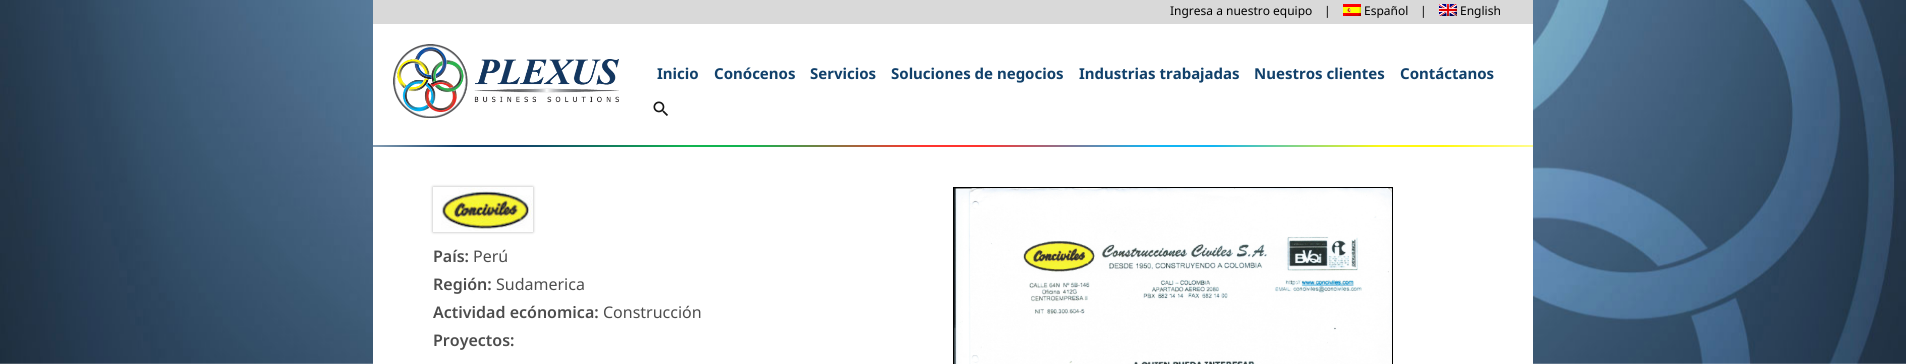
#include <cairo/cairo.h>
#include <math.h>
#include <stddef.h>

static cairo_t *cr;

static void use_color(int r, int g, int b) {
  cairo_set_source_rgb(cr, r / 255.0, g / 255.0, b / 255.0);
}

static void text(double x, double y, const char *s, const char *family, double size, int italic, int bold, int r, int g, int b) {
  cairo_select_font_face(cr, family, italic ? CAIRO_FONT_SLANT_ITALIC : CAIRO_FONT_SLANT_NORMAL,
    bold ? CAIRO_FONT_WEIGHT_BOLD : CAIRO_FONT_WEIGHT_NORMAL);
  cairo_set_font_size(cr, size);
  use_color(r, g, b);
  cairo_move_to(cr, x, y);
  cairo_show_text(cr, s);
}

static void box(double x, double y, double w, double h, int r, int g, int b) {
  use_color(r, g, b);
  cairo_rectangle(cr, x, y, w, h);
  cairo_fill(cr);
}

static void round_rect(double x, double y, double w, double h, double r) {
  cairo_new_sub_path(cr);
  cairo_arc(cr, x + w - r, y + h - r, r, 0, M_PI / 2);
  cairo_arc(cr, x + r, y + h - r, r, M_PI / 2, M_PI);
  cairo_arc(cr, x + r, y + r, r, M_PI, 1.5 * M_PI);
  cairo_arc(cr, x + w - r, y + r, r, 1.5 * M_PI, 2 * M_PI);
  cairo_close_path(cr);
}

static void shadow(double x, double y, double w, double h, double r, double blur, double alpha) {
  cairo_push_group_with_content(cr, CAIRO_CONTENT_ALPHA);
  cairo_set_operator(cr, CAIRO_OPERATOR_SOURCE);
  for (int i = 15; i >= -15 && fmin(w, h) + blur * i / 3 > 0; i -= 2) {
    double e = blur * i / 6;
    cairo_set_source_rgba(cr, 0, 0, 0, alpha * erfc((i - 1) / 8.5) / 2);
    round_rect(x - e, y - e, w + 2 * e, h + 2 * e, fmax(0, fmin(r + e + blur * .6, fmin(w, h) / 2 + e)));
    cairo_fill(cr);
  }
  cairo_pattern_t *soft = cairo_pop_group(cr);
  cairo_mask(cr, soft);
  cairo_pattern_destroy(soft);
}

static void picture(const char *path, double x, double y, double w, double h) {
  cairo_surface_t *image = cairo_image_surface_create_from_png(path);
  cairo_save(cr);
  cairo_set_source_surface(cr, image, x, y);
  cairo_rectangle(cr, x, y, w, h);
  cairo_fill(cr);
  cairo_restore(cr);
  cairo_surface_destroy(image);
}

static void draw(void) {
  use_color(255, 255, 255);
  cairo_paint(cr);
  picture("img_01.png", 0, 0, 1906, 364);
  box(373, 0, 1160, 24, 217, 217, 217);
  picture("img_02.png", 1343, 4, 18, 12);
  picture("img_03.png", 1439, 4, 18, 12);
  box(373, 24, 1160, 121, 255, 255, 255);
  picture("img_04.png", 373, 145, 1160, 2);
  picture("img_05.png", 393, 44, 226, 74);
  picture("img_06.png", 653, 101, 15, 15);
  box(373, 147, 1160, 217, 255, 255, 255);
  cairo_save(cr);
  cairo_set_fill_rule(cr, CAIRO_FILL_RULE_EVEN_ODD);
  cairo_new_path(cr);
  cairo_move_to(cr, 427, 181);
  cairo_line_to(cr, 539, 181);
  cairo_line_to(cr, 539, 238);
  cairo_line_to(cr, 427, 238);
  cairo_close_path(cr);
  cairo_move_to(cr, 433, 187);
  cairo_line_to(cr, 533, 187);
  cairo_line_to(cr, 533, 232);
  cairo_line_to(cr, 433, 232);
  cairo_close_path(cr);
  cairo_clip(cr);
  use_color(0, 0, 0);
  shadow(433, 187, 100, 45, 0, 1.5, 0.3);
  cairo_restore(cr);
  picture("img_07.png", 441, 187, 92, 44);
  cairo_rectangle(cr, 953.5, 187.5, 439, 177);
  use_color(0, 0, 0);
  cairo_set_line_width(cr, 1);
  cairo_stroke(cr);
  picture("img_08.png", 954, 188, 438, 176);
  text(1170, 15, "Ingresa a nuestro equipo", "Noto Sans", 12, 0, 0, 0, 0, 0);
  text(1324, 15, "|", "Noto Sans", 12, 0, 0, 0, 0, 0);
  text(1364, 15, "Español", "Noto Sans", 12, 0, 0, 0, 0, 0);
  text(1420, 15, "|", "Noto Sans", 12, 0, 0, 0, 0, 0);
  text(1460, 15, "English", "Noto Sans", 12, 0, 0, 0, 0, 0);
  text(657, 79, "Inicio", "Noto Sans", 15, 0, 1, 17, 65, 107);
  text(714, 79, "Conócenos", "Noto Sans", 15, 0, 1, 17, 65, 107);
  text(810, 79, "Servicios", "Noto Sans", 15, 0, 1, 17, 65, 107);
  text(891, 79, "Soluciones de negocios", "Noto Sans", 15, 0, 1, 17, 65, 107);
  text(1079, 79, "Industrias trabajadas", "Noto Sans", 15, 0, 1, 17, 65, 107);
  text(1254, 79, "Nuestros clientes", "Noto Sans", 15, 0, 1, 17, 65, 107);
  text(1400, 79, "Contáctanos", "Noto Sans", 15, 0, 1, 17, 65, 107);
  text(433, 262, "País:", "Noto Sans SemiBold", 16, 0, 0, 77, 77, 77);
  text(473, 262, "Perú", "Noto Sans", 16, 0, 0, 77, 77, 77);
  text(433, 290, "Región:", "Noto Sans SemiBold", 16, 0, 0, 77, 77, 77);
  text(496, 290, "Sudamerica", "Noto Sans", 16, 0, 0, 77, 77, 77);
  text(433, 318, "Actividad ecónomica:", "Noto Sans SemiBold", 16, 0, 0, 77, 77, 77);
  text(603, 318, "Construcción", "Noto Sans", 16, 0, 0, 77, 77, 77);
  text(433, 346, "Proyectos:", "Noto Sans SemiBold", 16, 0, 0, 77, 77, 77);
}

int main(void) {
  cairo_surface_t *surface = cairo_image_surface_create(CAIRO_FORMAT_RGB24, 1906, 364);
  cr = cairo_create(surface);
  cairo_font_options_t *options = cairo_font_options_create();
  cairo_font_options_set_hint_metrics(options, CAIRO_HINT_METRICS_OFF);
  cairo_font_options_set_hint_style(options, CAIRO_HINT_STYLE_NONE);
  cairo_set_font_options(cr, options);
  cairo_set_miter_limit(cr, 4);
  draw();
  cairo_surface_write_to_png(surface, "out.png");
  cairo_font_options_destroy(options);
  cairo_destroy(cr);
  cairo_surface_destroy(surface);
  return 0;
}
